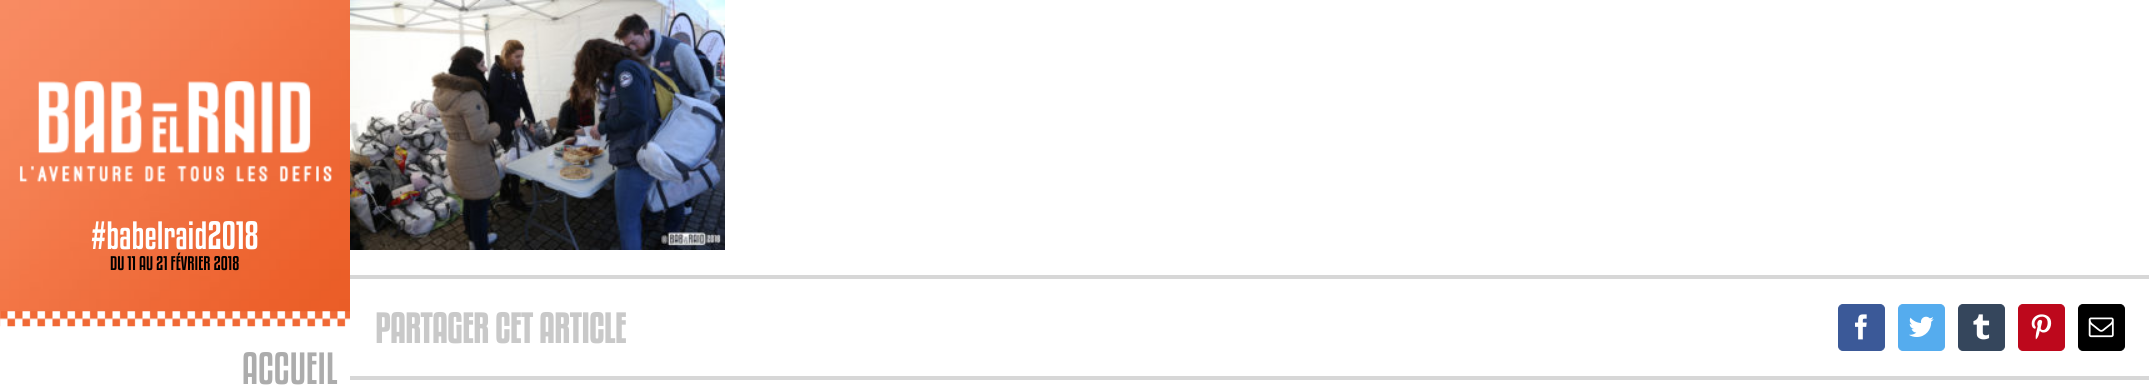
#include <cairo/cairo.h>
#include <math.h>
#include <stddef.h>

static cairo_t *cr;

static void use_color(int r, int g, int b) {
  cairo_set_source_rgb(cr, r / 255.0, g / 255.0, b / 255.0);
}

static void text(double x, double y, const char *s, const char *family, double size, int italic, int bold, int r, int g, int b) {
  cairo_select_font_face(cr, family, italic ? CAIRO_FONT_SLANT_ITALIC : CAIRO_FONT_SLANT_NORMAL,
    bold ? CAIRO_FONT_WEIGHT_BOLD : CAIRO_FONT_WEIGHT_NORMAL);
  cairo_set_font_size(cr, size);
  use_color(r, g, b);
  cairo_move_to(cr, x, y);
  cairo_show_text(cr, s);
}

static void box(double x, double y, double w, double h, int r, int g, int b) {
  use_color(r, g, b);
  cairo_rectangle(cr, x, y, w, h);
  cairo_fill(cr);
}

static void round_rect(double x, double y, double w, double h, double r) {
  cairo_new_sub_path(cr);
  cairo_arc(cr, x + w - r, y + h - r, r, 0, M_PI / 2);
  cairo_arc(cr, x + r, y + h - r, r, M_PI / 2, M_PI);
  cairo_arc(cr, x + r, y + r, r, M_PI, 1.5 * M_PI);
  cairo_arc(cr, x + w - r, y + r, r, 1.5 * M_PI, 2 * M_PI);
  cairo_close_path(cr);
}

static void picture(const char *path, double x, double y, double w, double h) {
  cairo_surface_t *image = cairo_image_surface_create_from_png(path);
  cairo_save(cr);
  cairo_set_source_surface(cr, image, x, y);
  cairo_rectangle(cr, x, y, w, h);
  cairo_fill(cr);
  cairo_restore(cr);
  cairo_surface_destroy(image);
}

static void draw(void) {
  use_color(255, 255, 255);
  cairo_paint(cr);
  picture("img_01.png", 0, 0, 350, 312);
  picture("img_02.png", 19, 81, 313, 102);
  picture("img_03.png", 0, 311, 350, 16);
  picture("img_04.png", 350, 0, 375, 250);
  box(350, 275, 1799, 4, 215, 215, 215);
  box(350, 376, 1799, 4, 215, 215, 215);
  use_color(59, 89, 152);
  round_rect(1838.5, 304.5, 46, 46, 4.5);
  cairo_fill_preserve(cr);
  cairo_set_line_width(cr, 1);
  cairo_stroke(cr);
  picture("img_05.png", 1855, 314, 12, 26);
  use_color(85, 172, 238);
  round_rect(1898.5, 304.5, 46, 46, 4.5);
  cairo_fill_preserve(cr);
  cairo_stroke(cr);
  picture("img_06.png", 1909, 316, 25, 21);
  use_color(53, 70, 92);
  round_rect(1958.5, 304.5, 46, 46, 4.5);
  cairo_fill_preserve(cr);
  cairo_stroke(cr);
  picture("img_07.png", 1973, 314, 17, 26);
  use_color(189, 8, 28);
  round_rect(2018.5, 304.5, 46, 46, 4.5);
  cairo_fill_preserve(cr);
  cairo_stroke(cr);
  picture("img_08.png", 2031, 314, 21, 26);
  use_color(0, 0, 0);
  round_rect(2078.5, 304.5, 46, 46, 4.5);
  cairo_fill_preserve(cr);
  cairo_stroke(cr);
  picture("img_09.png", 2088, 317, 26, 21);
  text(91, 249, "#babelraid2018", "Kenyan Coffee", 35, 0, 0, 255, 255, 255);
  text(110, 270, "DU 11 AU 21 FÉVRIER 2018", "Kenyan Coffee", 17.5, 0, 0, 0, 0, 0);
  text(242, 384, "ACCUEIL", "Kenyan Coffee", 40, 0, 0, 172, 172, 172);
  text(375, 343, "PARTAGER CET ARTICLE", "Kenyan Coffee", 37.5, 0, 1, 201, 201, 201);
}

int main(void) {
  cairo_surface_t *surface = cairo_image_surface_create(CAIRO_FORMAT_RGB24, 2149, 388);
  cr = cairo_create(surface);
  cairo_font_options_t *options = cairo_font_options_create();
  cairo_font_options_set_hint_metrics(options, CAIRO_HINT_METRICS_OFF);
  cairo_font_options_set_hint_style(options, CAIRO_HINT_STYLE_NONE);
  cairo_set_font_options(cr, options);
  cairo_set_miter_limit(cr, 4);
  draw();
  cairo_surface_write_to_png(surface, "out.png");
  cairo_font_options_destroy(options);
  cairo_destroy(cr);
  cairo_surface_destroy(surface);
  return 0;
}
